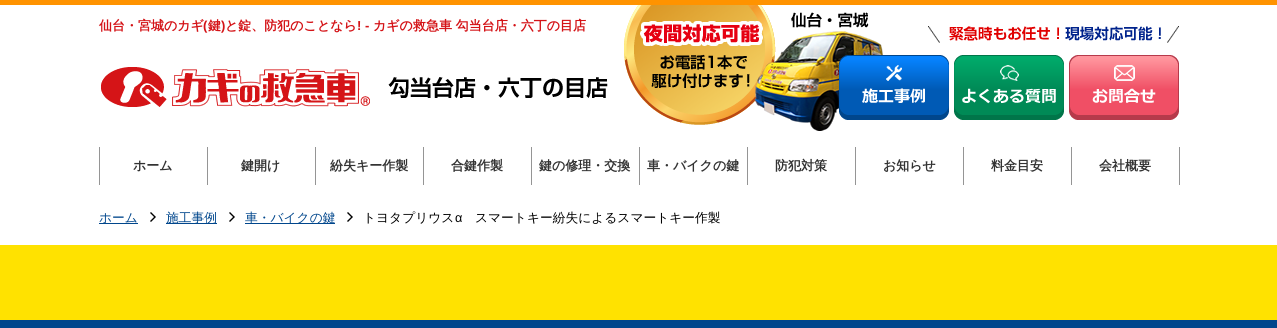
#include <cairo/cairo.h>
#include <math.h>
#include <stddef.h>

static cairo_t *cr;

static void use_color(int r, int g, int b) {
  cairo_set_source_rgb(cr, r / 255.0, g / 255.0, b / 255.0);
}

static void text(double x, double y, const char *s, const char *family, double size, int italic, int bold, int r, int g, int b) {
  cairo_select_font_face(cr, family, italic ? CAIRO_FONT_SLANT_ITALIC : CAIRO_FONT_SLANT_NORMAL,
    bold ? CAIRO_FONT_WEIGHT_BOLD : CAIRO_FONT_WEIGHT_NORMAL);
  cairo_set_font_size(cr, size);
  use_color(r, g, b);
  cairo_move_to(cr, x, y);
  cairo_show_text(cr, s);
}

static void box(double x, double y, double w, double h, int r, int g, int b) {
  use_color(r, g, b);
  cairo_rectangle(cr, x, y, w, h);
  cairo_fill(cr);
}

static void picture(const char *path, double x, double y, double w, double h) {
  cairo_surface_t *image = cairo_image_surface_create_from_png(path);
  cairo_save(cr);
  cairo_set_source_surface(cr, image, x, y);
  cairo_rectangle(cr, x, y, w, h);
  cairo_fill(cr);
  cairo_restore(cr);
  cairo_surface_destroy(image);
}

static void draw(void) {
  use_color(255, 255, 255);
  cairo_paint(cr);
  box(0, 0, 1277, 5, 255, 147, 0);
  picture("img_01.png", 624, 5, 259, 126);
  picture("img_02.png", 928, 26, 251, 17);
  picture("img_03.png", 101, 67, 507, 40);
  picture("img_04.png", 839, 55, 110, 65);
  picture("img_05.png", 954, 55, 110, 65);
  picture("img_06.png", 1069, 55, 110, 65);
  box(1179, 147, 1, 38, 149, 149, 149);
  box(99, 147, 1, 38, 149, 149, 149);
  box(207, 147, 1, 38, 149, 149, 149);
  box(315, 147, 1, 38, 149, 149, 149);
  box(423, 147, 1, 38, 149, 149, 149);
  box(531, 147, 1, 38, 149, 149, 149);
  box(639, 147, 1, 38, 149, 149, 149);
  box(747, 147, 1, 38, 149, 149, 149);
  box(855, 147, 1, 38, 149, 149, 149);
  box(963, 147, 1, 38, 149, 149, 149);
  box(1071, 147, 1, 38, 149, 149, 149);
  box(99, 223, 39, 1, 0, 70, 140);
  picture("img_07.png", 150, 212, 6, 10);
  box(166, 223, 51, 1, 0, 70, 140);
  picture("img_07.png", 229, 212, 6, 10);
  box(245, 223, 90, 1, 0, 70, 140);
  picture("img_07.png", 347, 212, 6, 10);
  box(0, 245, 1277, 75, 255, 226, 0);
  box(0, 320, 1277, 8, 0, 70, 140);
  text(99, 30, "仙台・宮城のカギ", "WenQuanYi Zen Hei", 13, 0, 1, 212, 19, 23);
  text(203, 30, "(", "Liberation Sans", 13, 0, 1, 212, 19, 23);
  text(208, 30, "鍵", "WenQuanYi Zen Hei", 13, 0, 1, 212, 19, 23);
  text(221, 30, ")", "Liberation Sans", 13, 0, 1, 212, 19, 23);
  text(225, 30, "と錠、防犯のことなら", "WenQuanYi Zen Hei", 13, 0, 1, 212, 19, 23);
  text(357, 30, "! -", "Liberation Sans", 13, 0, 1, 212, 19, 23);
  text(373, 30, "カギの救急車 勾当台店・六丁の目店", "WenQuanYi Zen Hei", 13, 0, 1, 212, 19, 23);
  text(133, 170, "ホーム", "WenQuanYi Zen Hei", 13, 0, 1, 51, 51, 51);
  text(241, 170, "鍵開け", "WenQuanYi Zen Hei", 13, 0, 1, 51, 51, 51);
  text(330, 170, "紛失キー作製", "WenQuanYi Zen Hei", 13, 0, 1, 51, 51, 51);
  text(451, 170, "合鍵作製", "WenQuanYi Zen Hei", 13, 0, 1, 51, 51, 51);
  text(539, 170, "鍵の修理・交換", "WenQuanYi Zen Hei", 13, 0, 1, 51, 51, 51);
  text(647, 170, "車・バイクの鍵", "WenQuanYi Zen Hei", 13, 0, 1, 51, 51, 51);
  text(775, 170, "防犯対策", "WenQuanYi Zen Hei", 13, 0, 1, 51, 51, 51);
  text(883, 170, "お知らせ", "WenQuanYi Zen Hei", 13, 0, 1, 51, 51, 51);
  text(991, 170, "料金目安", "WenQuanYi Zen Hei", 13, 0, 1, 51, 51, 51);
  text(1099, 170, "会社概要", "WenQuanYi Zen Hei", 13, 0, 1, 51, 51, 51);
  text(99, 222, "ホーム", "WenQuanYi Zen Hei Medium", 12.75, 0, 0, 0, 70, 140);
  text(166, 222, "施工事例", "WenQuanYi Zen Hei Medium", 12.75, 0, 0, 0, 70, 140);
  text(245, 222, "車・バイクの鍵", "WenQuanYi Zen Hei Medium", 12.75, 0, 0, 0, 70, 140);
  text(363, 222, "トヨタプリウス", "WenQuanYi Zen Hei Medium", 12.75, 0, 0, 0, 0, 0);
  text(455, 222, "α", "Liberation Sans", 12.75, 0, 0, 0, 0, 0);
  text(475, 222, "スマートキー紛失によるスマートキー作製", "WenQuanYi Zen Hei Medium", 12.75, 0, 0, 0, 0, 0);
}

int main(void) {
  cairo_surface_t *surface = cairo_image_surface_create(CAIRO_FORMAT_RGB24, 1277, 328);
  cr = cairo_create(surface);
  cairo_font_options_t *options = cairo_font_options_create();
  cairo_font_options_set_hint_metrics(options, CAIRO_HINT_METRICS_OFF);
  cairo_font_options_set_hint_style(options, CAIRO_HINT_STYLE_NONE);
  cairo_set_font_options(cr, options);
  cairo_set_miter_limit(cr, 4);
  draw();
  cairo_surface_write_to_png(surface, "out.png");
  cairo_font_options_destroy(options);
  cairo_destroy(cr);
  cairo_surface_destroy(surface);
  return 0;
}
